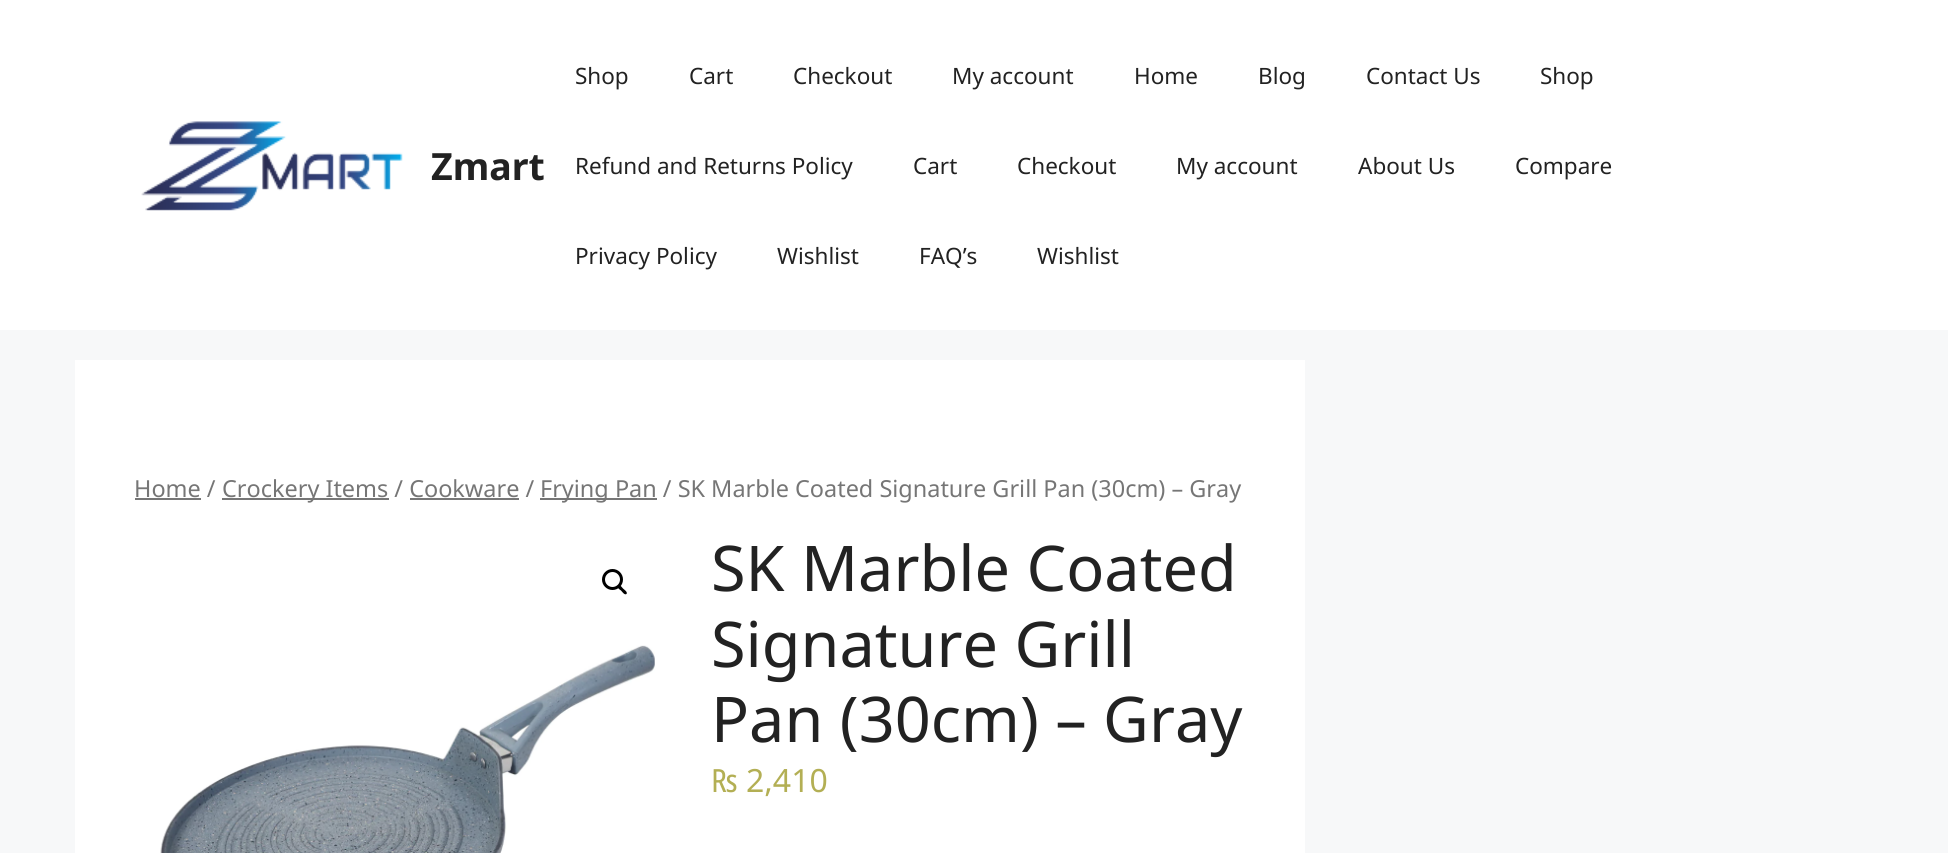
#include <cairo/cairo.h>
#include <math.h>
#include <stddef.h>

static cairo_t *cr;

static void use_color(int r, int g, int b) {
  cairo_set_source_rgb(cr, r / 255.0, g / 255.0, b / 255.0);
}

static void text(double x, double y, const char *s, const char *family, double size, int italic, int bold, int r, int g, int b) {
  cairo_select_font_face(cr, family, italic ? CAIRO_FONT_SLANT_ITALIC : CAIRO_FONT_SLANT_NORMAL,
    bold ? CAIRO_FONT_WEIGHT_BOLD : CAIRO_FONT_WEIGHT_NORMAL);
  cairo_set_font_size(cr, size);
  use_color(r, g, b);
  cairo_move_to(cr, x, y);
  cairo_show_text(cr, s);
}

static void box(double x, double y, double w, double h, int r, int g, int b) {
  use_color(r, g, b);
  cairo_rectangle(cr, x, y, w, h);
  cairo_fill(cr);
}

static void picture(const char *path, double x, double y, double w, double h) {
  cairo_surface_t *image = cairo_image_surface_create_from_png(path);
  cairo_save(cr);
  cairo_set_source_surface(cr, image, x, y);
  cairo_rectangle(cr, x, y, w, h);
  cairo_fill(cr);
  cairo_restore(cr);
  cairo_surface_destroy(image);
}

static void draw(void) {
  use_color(247, 248, 249);
  cairo_paint(cr);
  box(0, 0, 1948, 330, 255, 255, 255);
  picture("img_01.png", 141, 121, 262, 90);
  box(75, 360, 1230, 493, 255, 255, 255);
  box(135, 498, 66, 2, 118, 118, 118);
  box(222, 498, 167, 2, 118, 118, 118);
  box(540, 498, 117, 2, 118, 118, 118);
  box(410, 498, 109, 2, 118, 118, 118);
  cairo_arc(cr, 612.5, 579.5, 9, 0, 2 * M_PI);
  use_color(0, 0, 0);
  cairo_set_line_width(cr, 3);
  cairo_stroke(cr);
  cairo_new_path(cr);
  cairo_move_to(cr, 618, 585.5);
  cairo_curve_to(cr, 619.5, 583.5, 622, 587.5, 623, 588.5);
  cairo_curve_to(cr, 624, 589.5, 628, 592, 626.5, 594);
  cairo_curve_to(cr, 624.5, 595.5, 622, 591.5, 621, 590.5);
  cairo_curve_to(cr, 620, 590, 616, 587, 618, 585.5);
  cairo_close_path(cr);
  cairo_fill(cr);
  picture("img_02.png", 160, 645, 495, 208);
  text(431, 180, "Zmart", "Noto Sans", 37.5, 0, 1, 34, 34, 34);
  text(575, 84, "Shop", "Noto Sans", 22.5, 0, 0, 34, 34, 34);
  text(689, 84, "Cart", "Noto Sans", 22.5, 0, 0, 34, 34, 34);
  text(793, 84, "Checkout", "Noto Sans", 22.5, 0, 0, 34, 34, 34);
  text(952, 84, "My account", "Noto Sans", 22.5, 0, 0, 34, 34, 34);
  text(1134, 84, "Home", "Noto Sans", 22.5, 0, 0, 34, 34, 34);
  text(1258, 84, "Blog", "Noto Sans", 22.5, 0, 0, 34, 34, 34);
  text(1366, 84, "Contact Us", "Noto Sans", 22.5, 0, 0, 34, 34, 34);
  text(1540, 84, "Shop", "Noto Sans", 22.5, 0, 0, 34, 34, 34);
  text(575, 174, "Refund and Returns Policy", "Noto Sans", 22.5, 0, 0, 34, 34, 34);
  text(913, 174, "Cart", "Noto Sans", 22.5, 0, 0, 34, 34, 34);
  text(1017, 174, "Checkout", "Noto Sans", 22.5, 0, 0, 34, 34, 34);
  text(1176, 174, "My account", "Noto Sans", 22.5, 0, 0, 34, 34, 34);
  text(1358, 174, "About Us", "Noto Sans", 22.5, 0, 0, 34, 34, 34);
  text(1515, 174, "Compare", "Noto Sans", 22.5, 0, 0, 34, 34, 34);
  text(575, 264, "Privacy Policy", "Noto Sans", 22.5, 0, 0, 34, 34, 34);
  text(777, 264, "Wishlist", "Noto Sans", 22.5, 0, 0, 34, 34, 34);
  text(919, 264, "FAQ’s", "Noto Sans", 22.5, 0, 0, 34, 34, 34);
  text(1037, 264, "Wishlist", "Noto Sans", 22.5, 0, 0, 34, 34, 34);
  text(134, 497, "Home /", "Noto Sans", 23.45, 0, 0, 118, 118, 118);
  text(222, 497, "Crockery Items / Cookware /", "Noto Sans", 23.45, 0, 0, 118, 118, 118);
  text(540, 497, "Frying Pan / SK Marble Coated Signature Grill Pan (30cm) – Gray", "Noto Sans", 23.45, 0, 0, 118, 118, 118);
  text(711, 591, "SK Marble Coated", "Noto Sans", 63, 0, 0, 34, 34, 34);
  text(711, 667, "Signature Grill", "Noto Sans", 63, 0, 0, 34, 34, 34);
  text(711, 742, "Pan (30cm) – Gray", "Noto Sans", 63, 0, 0, 34, 34, 34);
  text(711, 792, "₨ 2,410", "Noto Sans", 32, 0, 0, 179, 175, 84);
}

int main(void) {
  cairo_surface_t *surface = cairo_image_surface_create(CAIRO_FORMAT_RGB24, 1948, 853);
  cr = cairo_create(surface);
  cairo_font_options_t *options = cairo_font_options_create();
  cairo_font_options_set_hint_metrics(options, CAIRO_HINT_METRICS_OFF);
  cairo_font_options_set_hint_style(options, CAIRO_HINT_STYLE_NONE);
  cairo_set_font_options(cr, options);
  cairo_set_miter_limit(cr, 4);
  draw();
  cairo_surface_write_to_png(surface, "out.png");
  cairo_font_options_destroy(options);
  cairo_destroy(cr);
  cairo_surface_destroy(surface);
  return 0;
}
